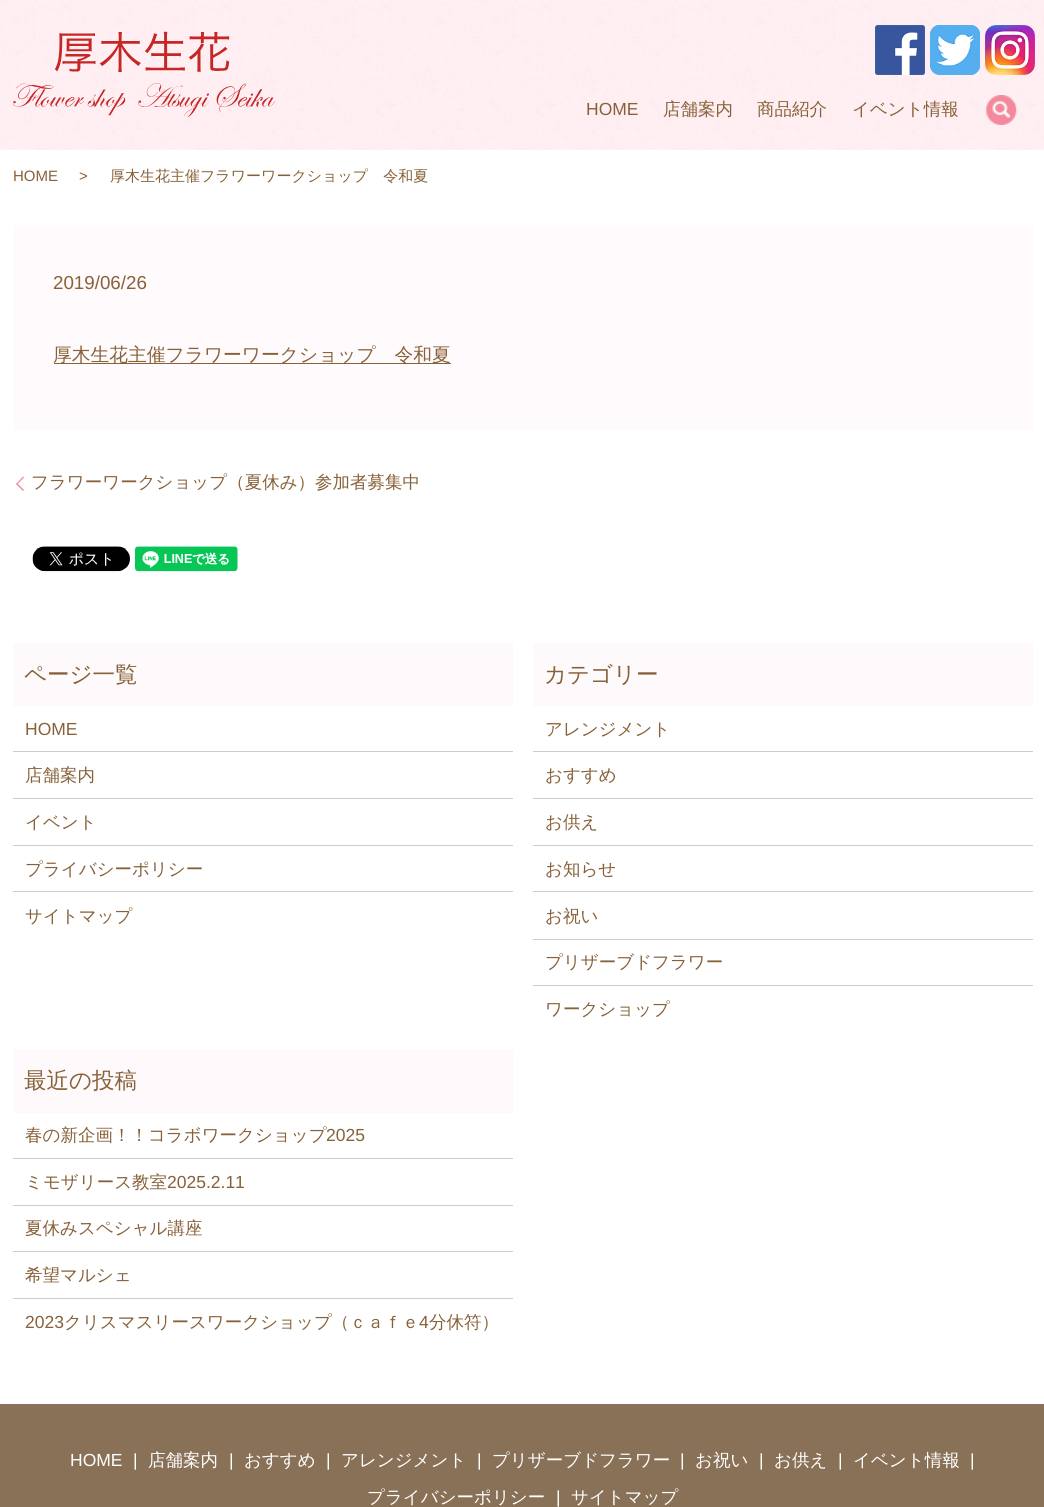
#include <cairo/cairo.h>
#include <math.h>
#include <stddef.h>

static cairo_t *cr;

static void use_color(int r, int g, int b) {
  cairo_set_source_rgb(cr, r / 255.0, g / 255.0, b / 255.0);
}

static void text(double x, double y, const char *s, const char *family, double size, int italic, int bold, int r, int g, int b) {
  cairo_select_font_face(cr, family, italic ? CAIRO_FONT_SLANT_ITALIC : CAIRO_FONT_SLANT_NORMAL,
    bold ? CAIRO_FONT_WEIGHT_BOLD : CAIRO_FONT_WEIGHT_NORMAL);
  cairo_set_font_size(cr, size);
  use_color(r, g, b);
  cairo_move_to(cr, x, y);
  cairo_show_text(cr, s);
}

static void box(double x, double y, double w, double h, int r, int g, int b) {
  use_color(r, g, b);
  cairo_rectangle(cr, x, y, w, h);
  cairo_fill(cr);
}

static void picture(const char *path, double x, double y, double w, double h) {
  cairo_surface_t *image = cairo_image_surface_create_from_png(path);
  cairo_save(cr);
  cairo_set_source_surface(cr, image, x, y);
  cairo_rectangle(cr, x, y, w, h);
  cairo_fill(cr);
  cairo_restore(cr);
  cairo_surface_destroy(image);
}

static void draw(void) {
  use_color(255, 255, 255);
  cairo_paint(cr);
  picture("img_01.png", 0, 0, 1044, 150);
  picture("img_02.png", 13, 31, 263, 87);
  picture("img_03.png", 875, 25, 50, 50);
  picture("img_04.png", 930, 25, 50, 50);
  picture("img_05.png", 985, 25, 50, 50);
  picture("img_06.png", 986, 95, 31, 30);
  box(13, 225, 1020, 205, 255, 250, 251);
  box(54, 363, 397, 1, 135, 97, 57);
  use_color(244, 136, 156);
  cairo_new_path(cr);
  cairo_move_to(cr, 16, 484);
  cairo_line_to(cr, 23, 476.5);
  cairo_line_to(cr, 24, 477.5);
  cairo_line_to(cr, 17, 484.5);
  cairo_close_path(cr);
  cairo_fill(cr);
  cairo_new_path(cr);
  cairo_move_to(cr, 23, 491);
  cairo_line_to(cr, 16, 484);
  cairo_line_to(cr, 17, 483);
  cairo_line_to(cr, 24, 490);
  cairo_close_path(cr);
  cairo_fill(cr);
  picture("img_07.png", 32, 546, 98, 26);
  picture("img_08.png", 135, 546, 103, 26);
  box(13, 643, 500, 63, 254, 249, 250);
  box(13, 751, 500, 1, 204, 204, 204);
  box(13, 798, 500, 1, 204, 204, 204);
  box(13, 845, 500, 1, 204, 204, 204);
  box(13, 891, 500, 1, 204, 204, 204);
  box(533, 643, 500, 63, 254, 249, 250);
  box(533, 751, 500, 1, 204, 204, 204);
  box(533, 798, 500, 1, 204, 204, 204);
  box(533, 845, 500, 1, 204, 204, 204);
  box(533, 891, 500, 1, 204, 204, 204);
  box(533, 939, 500, 1, 204, 204, 204);
  box(533, 985, 500, 1, 204, 204, 204);
  box(13, 1049, 500, 64, 254, 249, 250);
  box(13, 1158, 500, 1, 204, 204, 204);
  box(13, 1205, 500, 1, 204, 204, 204);
  box(13, 1251, 500, 1, 204, 204, 204);
  box(13, 1298, 500, 1, 204, 204, 204);
  box(0, 1404, 1044, 103, 137, 113, 88);
  text(586, 115, "HOME", "Liberation Sans", 17.5, 0, 0, 135, 97, 57);
  text(663, 115, "店舗案内", "WenQuanYi Zen Hei Medium", 17.5, 0, 0, 135, 97, 57);
  text(757, 115, "商品紹介", "WenQuanYi Zen Hei Medium", 17.5, 0, 0, 135, 97, 57);
  text(852, 115, "イベント情報", "WenQuanYi Zen Hei Medium", 17.5, 0, 0, 135, 97, 57);
  text(13, 181, "HOME", "Liberation Sans", 15, 0, 0, 135, 97, 57);
  text(79, 181, ">", "Liberation Sans", 15, 0, 0, 135, 97, 57);
  text(110, 181, "厚木生花主催フラワーワークショップ　令和夏", "WenQuanYi Zen Hei Medium", 15, 0, 0, 135, 97, 57);
  text(53, 289, "2019/06/26", "Liberation Sans", 18.75, 0, 0, 135, 97, 57);
  text(53, 361, "厚木生花主催フラワーワークショップ　令和夏", "WenQuanYi Zen Hei Medium", 18.75, 0, 0, 135, 97, 57);
  text(31, 488, "フラワーワークショップ（夏休み）参加者募集中", "WenQuanYi Zen Hei Medium", 17.5, 0, 0, 135, 97, 57);
  text(24, 682, "ページ一覧", "WenQuanYi Zen Hei Medium", 22.5, 0, 0, 135, 97, 57);
  text(25, 735, "HOME", "Liberation Sans", 17.5, 0, 0, 135, 97, 57);
  text(25, 781, "店舗案内", "WenQuanYi Zen Hei Medium", 17.5, 0, 0, 135, 97, 57);
  text(25, 828, "イベント", "WenQuanYi Zen Hei Medium", 17.5, 0, 0, 135, 97, 57);
  text(25, 875, "プライバシーポリシー", "WenQuanYi Zen Hei Medium", 17.5, 0, 0, 135, 97, 57);
  text(25, 922, "サイトマップ", "WenQuanYi Zen Hei Medium", 17.5, 0, 0, 135, 97, 57);
  text(544, 682, "カテゴリー", "WenQuanYi Zen Hei Medium", 22.5, 0, 0, 135, 97, 57);
  text(545, 735, "アレンジメント", "WenQuanYi Zen Hei Medium", 17.5, 0, 0, 135, 97, 57);
  text(545, 781, "おすすめ", "WenQuanYi Zen Hei Medium", 17.5, 0, 0, 135, 97, 57);
  text(545, 828, "お供え", "WenQuanYi Zen Hei Medium", 17.5, 0, 0, 135, 97, 57);
  text(545, 875, "お知らせ", "WenQuanYi Zen Hei Medium", 17.5, 0, 0, 135, 97, 57);
  text(545, 922, "お祝い", "WenQuanYi Zen Hei Medium", 17.5, 0, 0, 135, 97, 57);
  text(545, 968, "プリザーブドフラワー", "WenQuanYi Zen Hei Medium", 17.5, 0, 0, 135, 97, 57);
  text(545, 1015, "ワークショップ", "WenQuanYi Zen Hei Medium", 17.5, 0, 0, 135, 97, 57);
  text(24, 1088, "最近の投稿", "WenQuanYi Zen Hei Medium", 22.5, 0, 0, 135, 97, 57);
  text(25, 1141, "春の新企画！！コラボワークショップ", "WenQuanYi Zen Hei Medium", 17.5, 0, 0, 135, 97, 57);
  text(326, 1141, "2025", "Liberation Sans", 17.5, 0, 0, 135, 97, 57);
  text(25, 1188, "ミモザリース教室", "WenQuanYi Zen Hei Medium", 17.5, 0, 0, 135, 97, 57);
  text(167, 1188, "2025.2.11", "Liberation Sans", 17.5, 0, 0, 135, 97, 57);
  text(25, 1234, "夏休みスペシャル講座", "WenQuanYi Zen Hei Medium", 17.5, 0, 0, 135, 97, 57);
  text(25, 1281, "希望マルシェ", "WenQuanYi Zen Hei Medium", 17.5, 0, 0, 135, 97, 57);
  text(25, 1328, "2023", "Liberation Sans", 17.5, 0, 0, 135, 97, 57);
  text(64, 1328, "クリスマスリースワークショップ（ｃａｆｅ", "WenQuanYi Zen Hei Medium", 17.5, 0, 0, 135, 97, 57);
  text(419, 1328, "4", "Liberation Sans", 17.5, 0, 0, 135, 97, 57);
  text(429, 1328, "分休符）", "WenQuanYi Zen Hei Medium", 17.5, 0, 0, 135, 97, 57);
  text(70, 1466, "HOME", "Liberation Sans", 17.5, 0, 0, 255, 255, 255);
  text(133, 1466, "|", "Liberation Sans", 17.5, 0, 0, 255, 255, 255);
  text(148, 1466, "店舗案内", "WenQuanYi Zen Hei Medium", 17.5, 0, 0, 255, 255, 255);
  text(229, 1466, "|", "Liberation Sans", 17.5, 0, 0, 255, 255, 255);
  text(244, 1466, "おすすめ", "WenQuanYi Zen Hei Medium", 17.5, 0, 0, 255, 255, 255);
  text(326, 1466, "|", "Liberation Sans", 17.5, 0, 0, 255, 255, 255);
  text(341, 1466, "アレンジメント", "WenQuanYi Zen Hei Medium", 17.5, 0, 0, 255, 255, 255);
  text(477, 1466, "|", "Liberation Sans", 17.5, 0, 0, 255, 255, 255);
  text(492, 1466, "プリザーブドフラワー", "WenQuanYi Zen Hei Medium", 17.5, 0, 0, 255, 255, 255);
  text(680, 1466, "|", "Liberation Sans", 17.5, 0, 0, 255, 255, 255);
  text(695, 1466, "お祝い", "WenQuanYi Zen Hei Medium", 17.5, 0, 0, 255, 255, 255);
  text(759, 1466, "|", "Liberation Sans", 17.5, 0, 0, 255, 255, 255);
  text(774, 1466, "お供え", "WenQuanYi Zen Hei Medium", 17.5, 0, 0, 255, 255, 255);
  text(838, 1466, "|", "Liberation Sans", 17.5, 0, 0, 255, 255, 255);
  text(853, 1466, "イベント情報", "WenQuanYi Zen Hei Medium", 17.5, 0, 0, 255, 255, 255);
  text(970, 1466, "|", "Liberation Sans", 17.5, 0, 0, 255, 255, 255);
  text(367, 1503, "プライバシーポリシー", "WenQuanYi Zen Hei Medium", 17.5, 0, 0, 255, 255, 255);
  text(556, 1503, "|", "Liberation Sans", 17.5, 0, 0, 255, 255, 255);
  text(571, 1503, "サイトマップ", "WenQuanYi Zen Hei Medium", 17.5, 0, 0, 255, 255, 255);
}

int main(void) {
  cairo_surface_t *surface = cairo_image_surface_create(CAIRO_FORMAT_RGB24, 1044, 1507);
  cr = cairo_create(surface);
  cairo_font_options_t *options = cairo_font_options_create();
  cairo_font_options_set_hint_metrics(options, CAIRO_HINT_METRICS_OFF);
  cairo_font_options_set_hint_style(options, CAIRO_HINT_STYLE_NONE);
  cairo_set_font_options(cr, options);
  cairo_set_miter_limit(cr, 4);
  draw();
  cairo_surface_write_to_png(surface, "out.png");
  cairo_font_options_destroy(options);
  cairo_destroy(cr);
  cairo_surface_destroy(surface);
  return 0;
}
